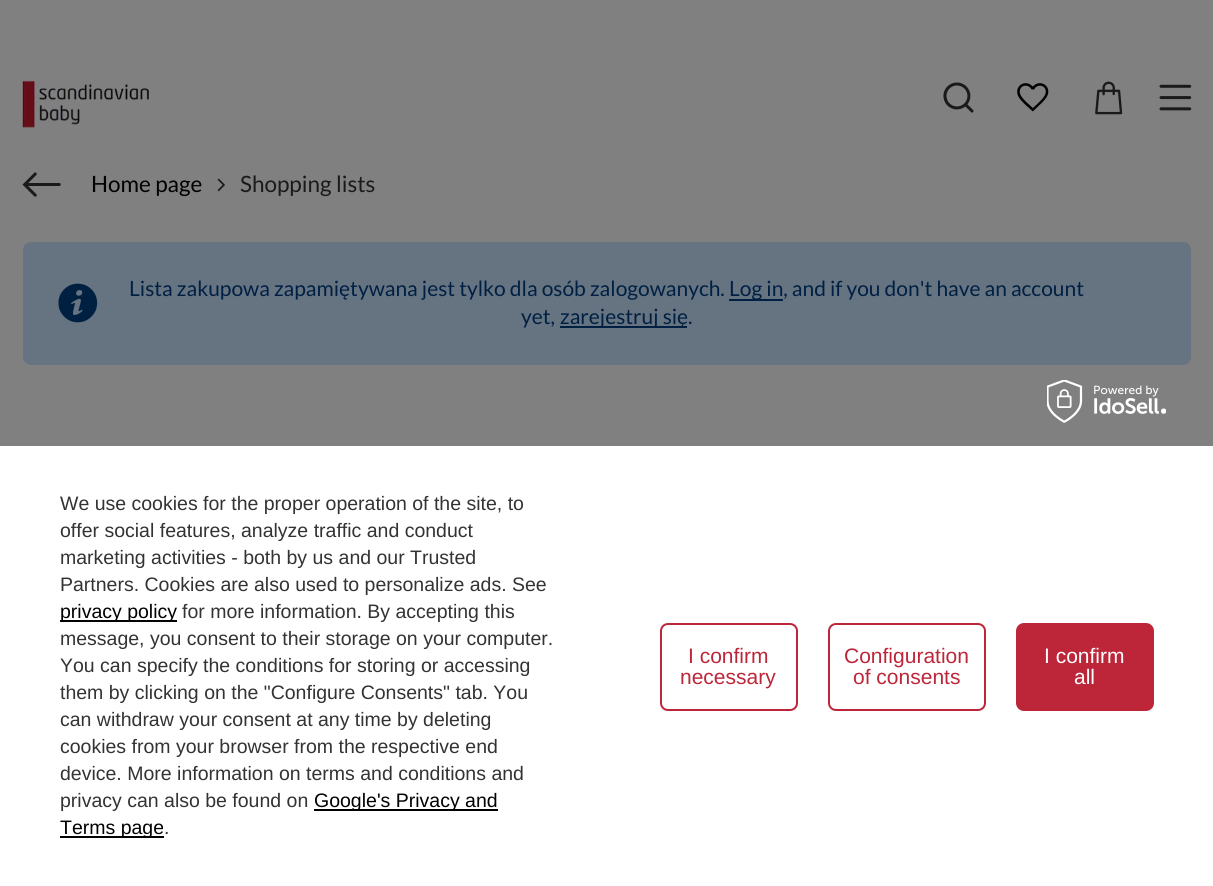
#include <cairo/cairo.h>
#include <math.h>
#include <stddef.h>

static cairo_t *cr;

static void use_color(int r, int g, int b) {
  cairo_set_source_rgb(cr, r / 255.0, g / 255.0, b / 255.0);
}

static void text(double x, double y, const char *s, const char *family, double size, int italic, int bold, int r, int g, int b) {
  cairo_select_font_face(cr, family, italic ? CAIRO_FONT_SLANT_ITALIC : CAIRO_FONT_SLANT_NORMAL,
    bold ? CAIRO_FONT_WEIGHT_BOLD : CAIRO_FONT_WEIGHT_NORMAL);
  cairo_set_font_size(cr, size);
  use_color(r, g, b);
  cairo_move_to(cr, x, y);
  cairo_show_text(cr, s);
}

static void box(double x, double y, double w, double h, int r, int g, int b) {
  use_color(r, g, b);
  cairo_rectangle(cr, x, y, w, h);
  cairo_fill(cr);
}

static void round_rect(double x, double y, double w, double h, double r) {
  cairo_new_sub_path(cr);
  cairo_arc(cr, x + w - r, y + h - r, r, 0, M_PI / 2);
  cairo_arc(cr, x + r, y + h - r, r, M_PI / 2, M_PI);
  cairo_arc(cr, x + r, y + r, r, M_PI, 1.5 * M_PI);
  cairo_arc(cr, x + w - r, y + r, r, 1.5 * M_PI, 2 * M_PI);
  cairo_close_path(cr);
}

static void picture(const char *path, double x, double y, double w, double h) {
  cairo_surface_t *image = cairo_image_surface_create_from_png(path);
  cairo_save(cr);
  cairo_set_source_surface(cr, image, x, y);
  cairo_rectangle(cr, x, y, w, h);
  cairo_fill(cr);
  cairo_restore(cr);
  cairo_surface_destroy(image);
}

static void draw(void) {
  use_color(128, 128, 128);
  cairo_paint(cr);
  picture("img_01.png", 22, 80, 127, 48);
  picture("img_02.png", 943, 82, 31, 31);
  picture("img_03.png", 1017, 83, 32, 29);
  picture("img_04.png", 1095, 81, 28, 34);
  picture("img_05.png", 1159, 84, 33, 27);
  picture("img_06.png", 22, 172, 39, 25);
  picture("img_07.png", 217, 178, 8, 14);
  use_color(102, 115, 128);
  round_rect(23, 242, 1168, 123, 8);
  cairo_fill(cr);
  picture("img_08.png", 58, 283, 40, 40);
  box(729, 299, 54, 2, 0, 32, 67);
  box(560, 326, 127, 2, 0, 32, 67);
  box(0, 446, 1213, 440, 255, 255, 255);
  picture("img_09.png", 1047, 380, 119, 43);
  box(60, 620, 117, 2, 0, 0, 0);
  box(314, 809, 184, 2, 0, 0, 0);
  box(60, 836, 104, 2, 0, 0, 0);
  round_rect(661, 624, 136, 86, 7);
  use_color(189, 38, 57);
  cairo_stroke(cr);
  round_rect(829, 624, 156, 86, 7);
  cairo_stroke(cr);
  round_rect(1017, 624, 136, 86, 7);
  cairo_fill_preserve(cr);
  cairo_stroke(cr);
  text(91, 192, "Home page", "Lato", 22.5, 0, 0, 0, 0, 0);
  text(240, 192, "Shopping lists", "Lato", 22.5, 0, 0, 26, 26, 26);
  text(129, 296, "Lista zakupowa zapamiętywana jest tylko dla osób zalogowanych.", "Lato", 21, 0, 0, 0, 32, 67);
  text(729, 296, "Log in, and if you don't have an account", "Lato", 21, 0, 0, 0, 32, 67);
  text(521, 324, "yet,", "Lato", 21, 0, 0, 0, 32, 67);
  text(560, 324, "zarejestruj się.", "Lato", 21, 0, 0, 0, 32, 67);
  text(60, 510, "We use cookies for the proper operation of the site, to", "Liberation Sans", 19.5, 0, 0, 51, 51, 51);
  text(60, 537, "offer social features, analyze traffic and conduct", "Liberation Sans", 19.5, 0, 0, 51, 51, 51);
  text(60, 564, "marketing activities - both by us and our Trusted", "Liberation Sans", 19.5, 0, 0, 51, 51, 51);
  text(60, 591, "Partners. Cookies are also used to personalize ads. See", "Liberation Sans", 19.5, 0, 0, 51, 51, 51);
  text(60, 618, "privacy policy", "Liberation Sans", 19.5, 0, 0, 0, 0, 0);
  text(182, 618, "for more information. By accepting this", "Liberation Sans", 19.5, 0, 0, 51, 51, 51);
  text(60, 645, "message, you consent to their storage on your computer.", "Liberation Sans", 19.5, 0, 0, 51, 51, 51);
  text(60, 672, "You can specify the conditions for storing or accessing", "Liberation Sans", 19.5, 0, 0, 51, 51, 51);
  text(60, 699, "them by clicking on the \"Configure Consents\" tab. You", "Liberation Sans", 19.5, 0, 0, 51, 51, 51);
  text(60, 726, "can withdraw your consent at any time by deleting", "Liberation Sans", 19.5, 0, 0, 51, 51, 51);
  text(60, 753, "cookies from your browser from the respective end", "Liberation Sans", 19.5, 0, 0, 51, 51, 51);
  text(60, 780, "device. More information on terms and conditions and", "Liberation Sans", 19.5, 0, 0, 51, 51, 51);
  text(60, 807, "privacy can also be found on", "Liberation Sans", 19.5, 0, 0, 51, 51, 51);
  text(314, 807, "Google's Privacy and", "Liberation Sans", 19.5, 0, 0, 0, 0, 0);
  text(60, 834, "Terms page", "Liberation Sans", 19.5, 0, 0, 0, 0, 0);
  text(164, 834, ".", "Liberation Sans", 19.5, 0, 0, 51, 51, 51);
  text(688, 663, "I confirm", "Liberation Sans", 21, 0, 0, 189, 38, 57);
  text(680, 684, "necessary", "Liberation Sans", 21, 0, 0, 189, 38, 57);
  text(844, 663, "Configuration", "Liberation Sans", 21, 0, 0, 189, 38, 57);
  text(853, 684, "of consents", "Liberation Sans", 21, 0, 0, 189, 38, 57);
  text(1044, 663, "I confirm", "Liberation Sans", 21, 0, 0, 255, 255, 255);
  text(1074, 684, "all", "Liberation Sans", 21, 0, 0, 255, 255, 255);
}

int main(void) {
  cairo_surface_t *surface = cairo_image_surface_create(CAIRO_FORMAT_RGB24, 1213, 886);
  cr = cairo_create(surface);
  cairo_font_options_t *options = cairo_font_options_create();
  cairo_font_options_set_hint_metrics(options, CAIRO_HINT_METRICS_OFF);
  cairo_font_options_set_hint_style(options, CAIRO_HINT_STYLE_NONE);
  cairo_set_font_options(cr, options);
  cairo_set_miter_limit(cr, 4);
  draw();
  cairo_surface_write_to_png(surface, "out.png");
  cairo_font_options_destroy(options);
  cairo_destroy(cr);
  cairo_surface_destroy(surface);
  return 0;
}
